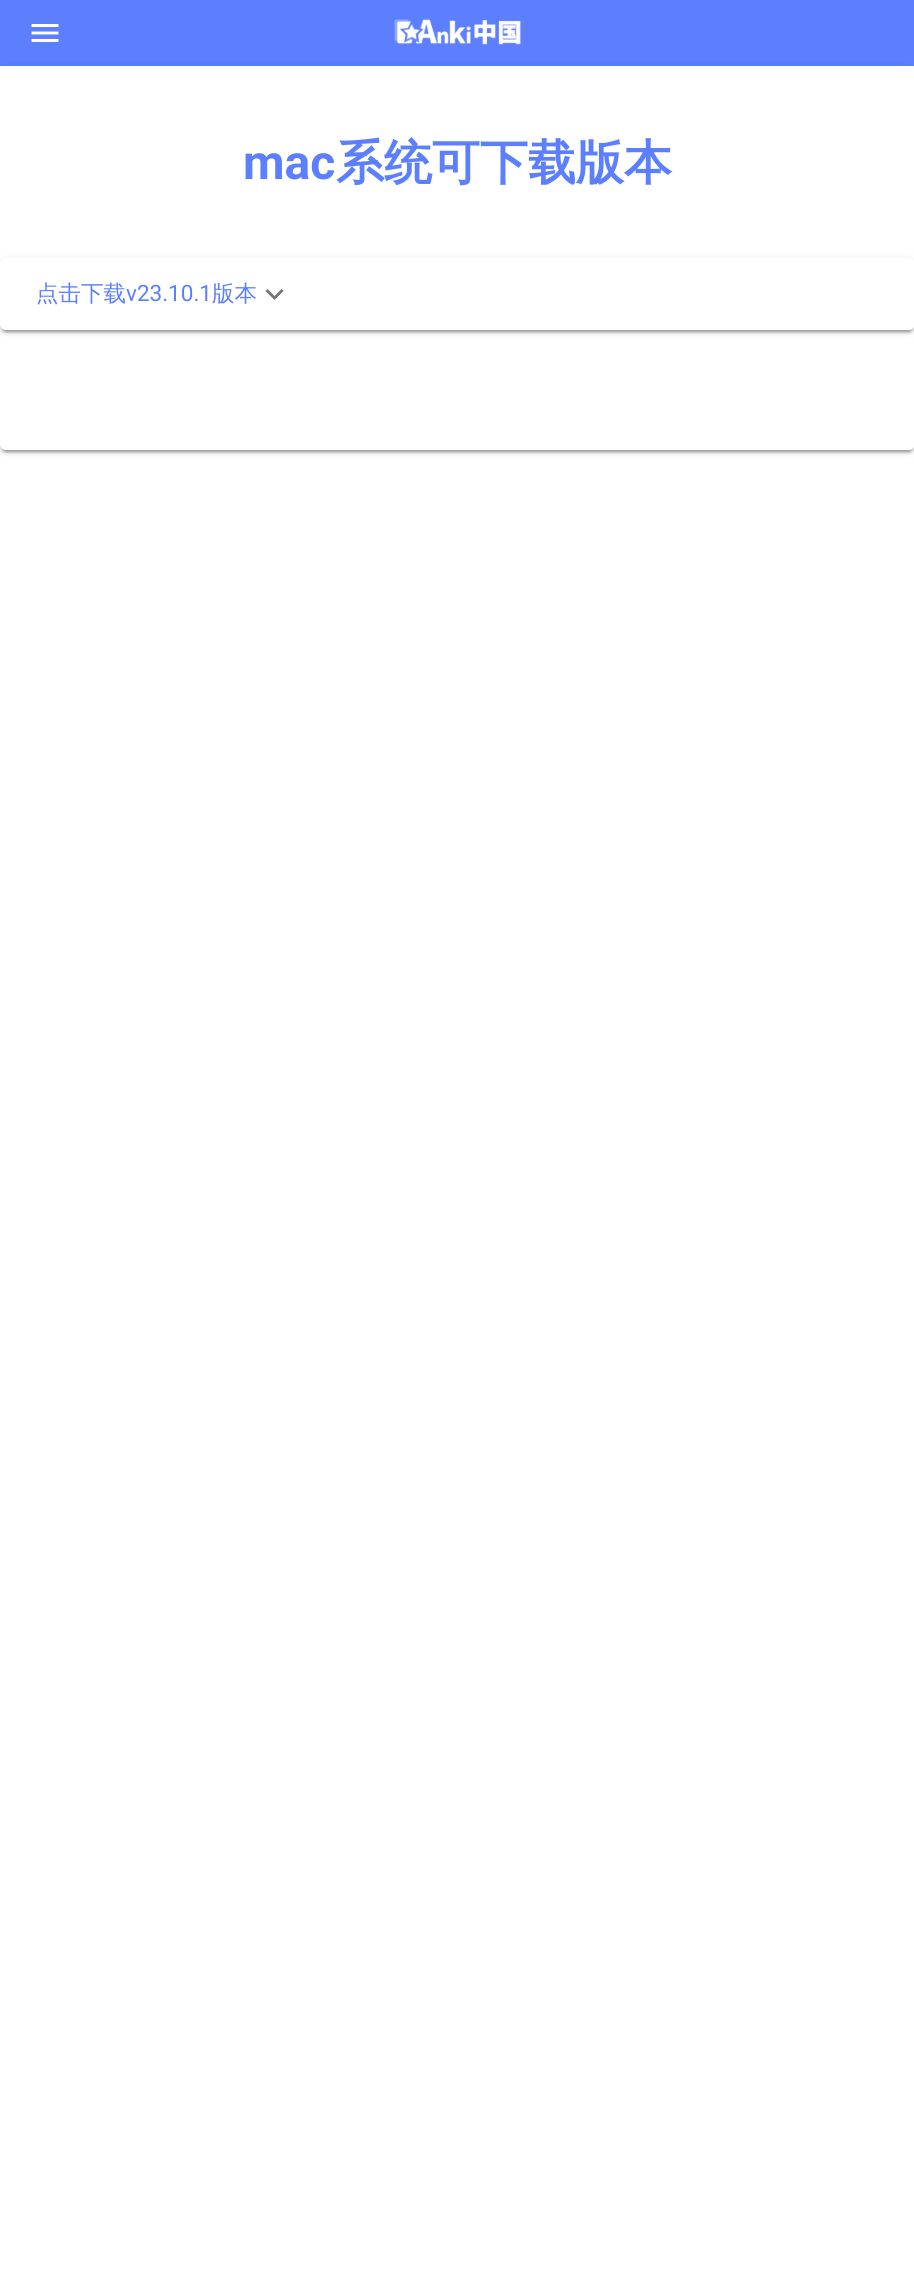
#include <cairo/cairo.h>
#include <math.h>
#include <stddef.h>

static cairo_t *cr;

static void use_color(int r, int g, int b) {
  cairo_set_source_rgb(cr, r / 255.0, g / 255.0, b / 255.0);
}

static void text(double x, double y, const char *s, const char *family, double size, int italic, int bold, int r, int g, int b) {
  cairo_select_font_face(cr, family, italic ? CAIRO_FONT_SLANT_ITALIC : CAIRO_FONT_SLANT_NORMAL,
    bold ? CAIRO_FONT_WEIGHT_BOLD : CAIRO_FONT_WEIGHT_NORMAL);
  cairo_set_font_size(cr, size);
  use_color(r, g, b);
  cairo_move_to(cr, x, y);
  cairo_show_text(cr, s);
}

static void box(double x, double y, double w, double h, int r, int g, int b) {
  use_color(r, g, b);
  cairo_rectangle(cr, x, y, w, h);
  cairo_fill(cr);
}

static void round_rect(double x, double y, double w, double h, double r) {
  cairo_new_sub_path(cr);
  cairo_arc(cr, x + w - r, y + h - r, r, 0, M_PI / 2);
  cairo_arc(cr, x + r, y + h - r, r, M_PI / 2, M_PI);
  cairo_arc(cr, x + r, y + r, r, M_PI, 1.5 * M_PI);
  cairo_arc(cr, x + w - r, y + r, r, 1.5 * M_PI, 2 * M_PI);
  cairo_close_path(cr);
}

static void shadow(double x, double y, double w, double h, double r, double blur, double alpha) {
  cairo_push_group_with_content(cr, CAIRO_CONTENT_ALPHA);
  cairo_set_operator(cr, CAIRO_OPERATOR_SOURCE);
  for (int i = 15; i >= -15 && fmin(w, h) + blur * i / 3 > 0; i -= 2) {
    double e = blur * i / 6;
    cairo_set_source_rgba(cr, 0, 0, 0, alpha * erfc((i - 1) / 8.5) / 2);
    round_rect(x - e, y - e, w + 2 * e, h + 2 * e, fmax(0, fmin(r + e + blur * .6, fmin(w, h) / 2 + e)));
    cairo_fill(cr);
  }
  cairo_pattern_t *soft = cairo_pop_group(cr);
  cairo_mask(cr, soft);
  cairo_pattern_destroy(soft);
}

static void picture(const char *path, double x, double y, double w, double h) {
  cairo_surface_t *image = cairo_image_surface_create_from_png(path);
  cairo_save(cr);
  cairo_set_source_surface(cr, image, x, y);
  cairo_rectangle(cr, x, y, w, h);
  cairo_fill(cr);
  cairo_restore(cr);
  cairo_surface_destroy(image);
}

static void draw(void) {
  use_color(255, 255, 255);
  cairo_paint(cr);
  box(0, 0, 914, 66, 92, 127, 255);
  picture("img_01.png", 31, 24, 28, 18);
  picture("img_02.png", 394, 19, 127, 26);
  use_color(0, 0, 0);
  shadow(0, 68, 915, 384, 6, 4, 0.12);
  shadow(0, 69, 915, 384, 6, 1.5, 0.14);
  shadow(3, 74, 909, 378, 3, 1, 0.2);
  use_color(255, 255, 255);
  round_rect(0, 66, 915, 384, 6);
  cairo_fill(cr);
  use_color(0, 0, 0);
  shadow(0, 260, 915, 72, 6, 4, 0.12);
  shadow(0, 261, 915, 72, 6, 1.5, 0.14);
  shadow(3, 266, 909, 66, 3, 1, 0.2);
  use_color(255, 255, 255);
  round_rect(0, 258, 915, 72, 6);
  cairo_fill(cr);
  use_color(117, 117, 117);
  cairo_new_path(cr);
  cairo_move_to(cr, 267.5, 289);
  cairo_line_to(cr, 274.5, 296);
  cairo_line_to(cr, 281.5, 289);
  cairo_line_to(cr, 283.5, 291);
  cairo_line_to(cr, 274.5, 300);
  cairo_line_to(cr, 265.5, 291);
  cairo_close_path(cr);
  cairo_fill(cr);
  text(243, 179, "mac", "Roboto", 48, 0, 1, 92, 127, 255);
  text(336, 179, "系统可下载版本", "WenQuanYi Zen Hei", 48, 0, 1, 92, 127, 255);
  text(36, 301, "点击下载", "WenQuanYi Zen Hei Medium", 22.5, 0, 0, 92, 127, 255);
  text(126, 301, "v23.10.1", "Roboto", 22.5, 0, 0, 92, 127, 255);
  text(212, 301, "版本", "WenQuanYi Zen Hei Medium", 22.5, 0, 0, 92, 127, 255);
}

int main(void) {
  cairo_surface_t *surface = cairo_image_surface_create(CAIRO_FORMAT_RGB24, 914, 2293);
  cr = cairo_create(surface);
  cairo_font_options_t *options = cairo_font_options_create();
  cairo_font_options_set_hint_metrics(options, CAIRO_HINT_METRICS_OFF);
  cairo_font_options_set_hint_style(options, CAIRO_HINT_STYLE_NONE);
  cairo_set_font_options(cr, options);
  cairo_set_miter_limit(cr, 4);
  draw();
  cairo_surface_write_to_png(surface, "out.png");
  cairo_font_options_destroy(options);
  cairo_destroy(cr);
  cairo_surface_destroy(surface);
  return 0;
}
